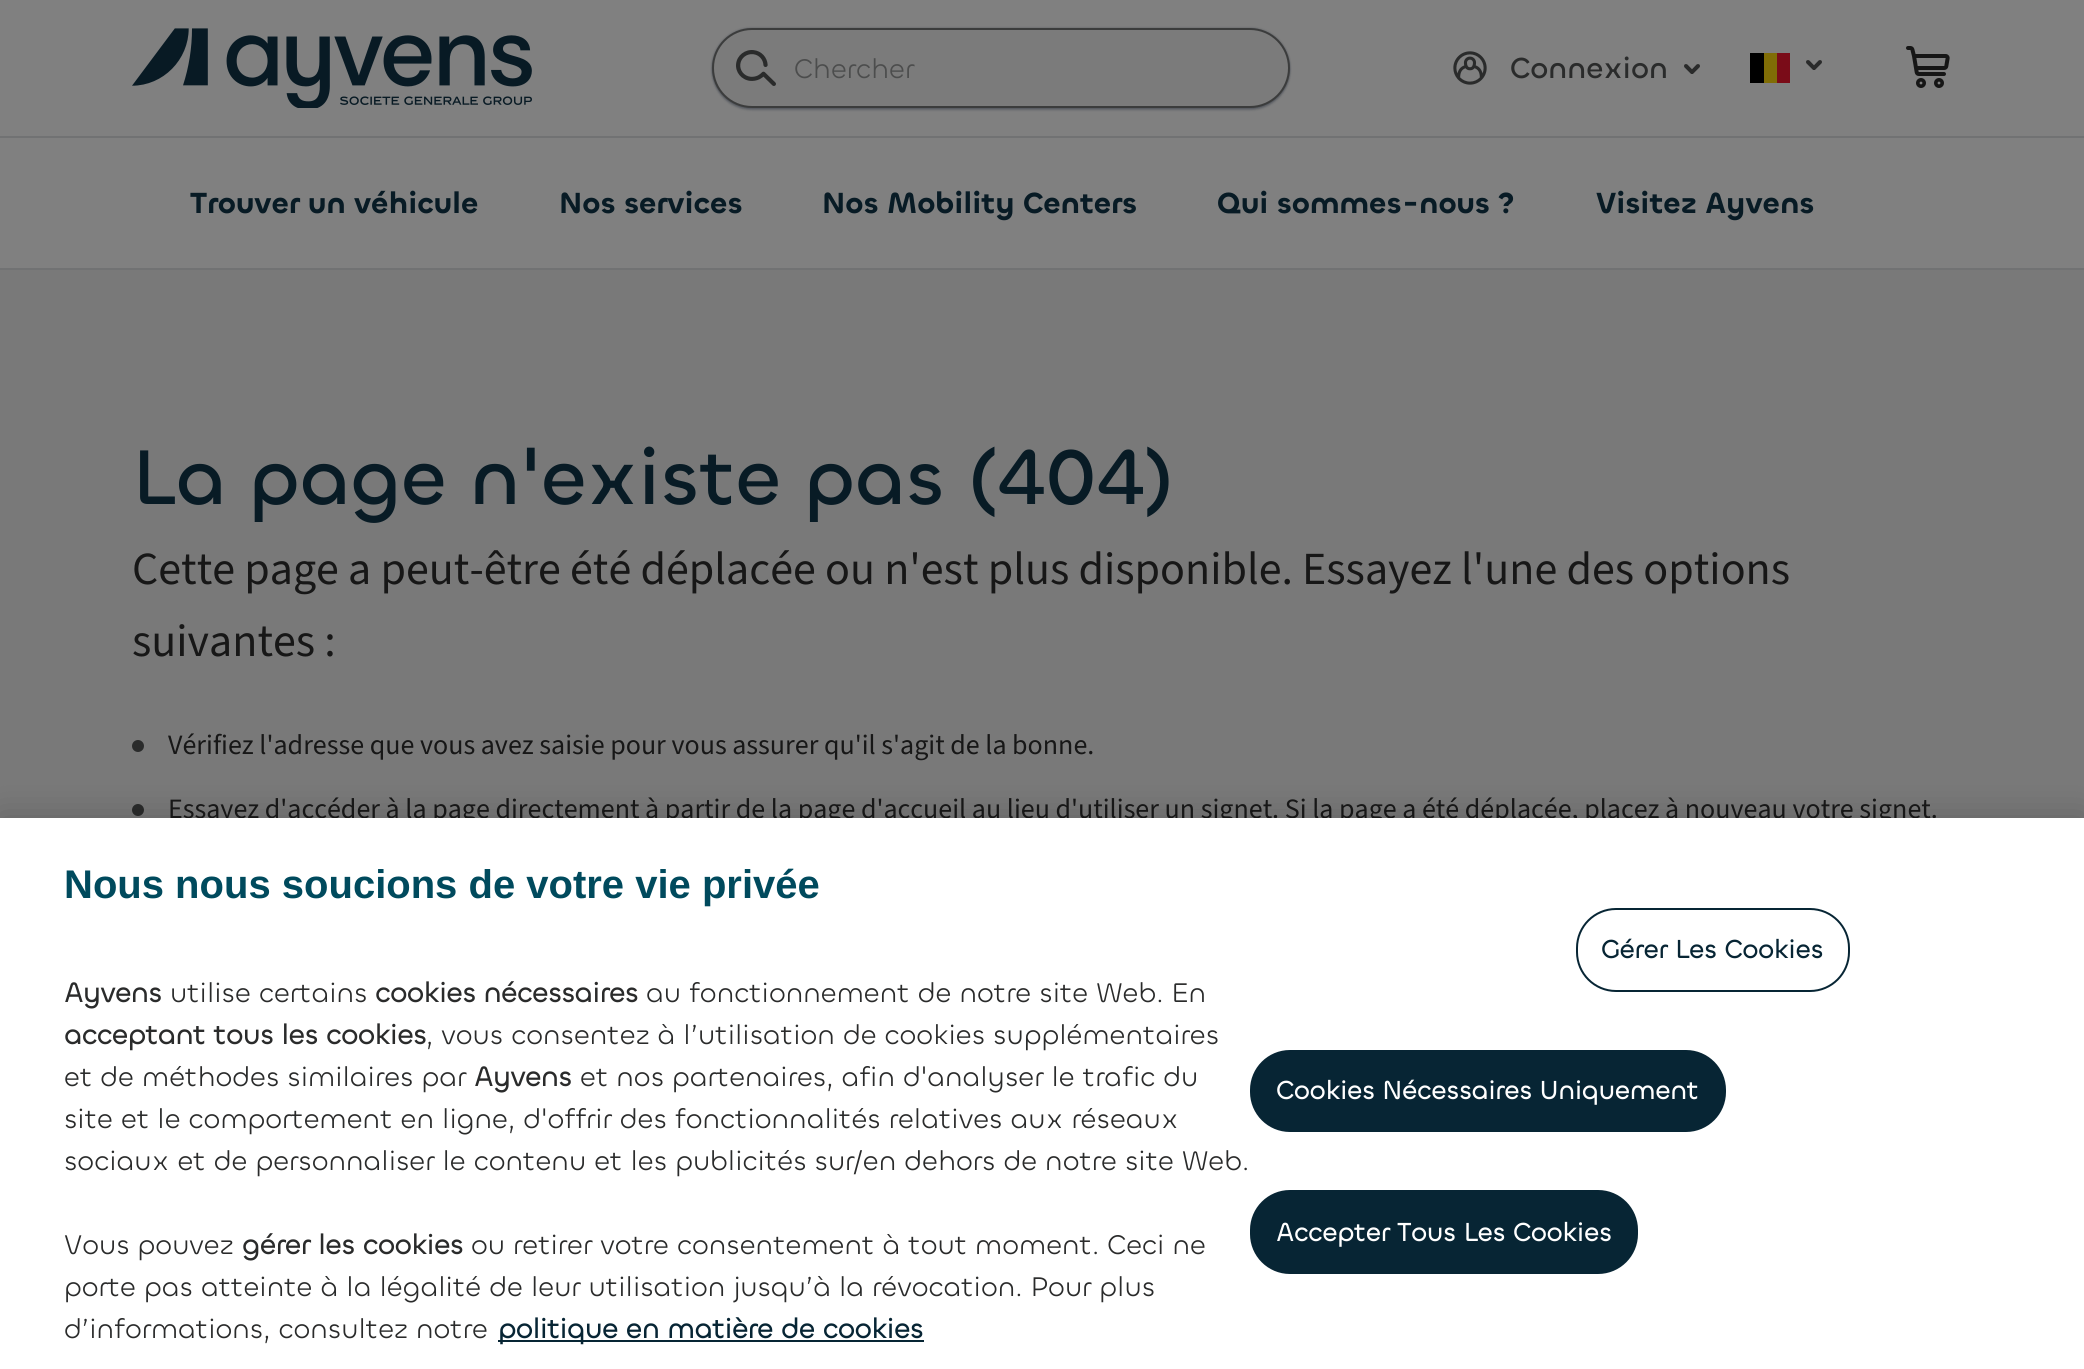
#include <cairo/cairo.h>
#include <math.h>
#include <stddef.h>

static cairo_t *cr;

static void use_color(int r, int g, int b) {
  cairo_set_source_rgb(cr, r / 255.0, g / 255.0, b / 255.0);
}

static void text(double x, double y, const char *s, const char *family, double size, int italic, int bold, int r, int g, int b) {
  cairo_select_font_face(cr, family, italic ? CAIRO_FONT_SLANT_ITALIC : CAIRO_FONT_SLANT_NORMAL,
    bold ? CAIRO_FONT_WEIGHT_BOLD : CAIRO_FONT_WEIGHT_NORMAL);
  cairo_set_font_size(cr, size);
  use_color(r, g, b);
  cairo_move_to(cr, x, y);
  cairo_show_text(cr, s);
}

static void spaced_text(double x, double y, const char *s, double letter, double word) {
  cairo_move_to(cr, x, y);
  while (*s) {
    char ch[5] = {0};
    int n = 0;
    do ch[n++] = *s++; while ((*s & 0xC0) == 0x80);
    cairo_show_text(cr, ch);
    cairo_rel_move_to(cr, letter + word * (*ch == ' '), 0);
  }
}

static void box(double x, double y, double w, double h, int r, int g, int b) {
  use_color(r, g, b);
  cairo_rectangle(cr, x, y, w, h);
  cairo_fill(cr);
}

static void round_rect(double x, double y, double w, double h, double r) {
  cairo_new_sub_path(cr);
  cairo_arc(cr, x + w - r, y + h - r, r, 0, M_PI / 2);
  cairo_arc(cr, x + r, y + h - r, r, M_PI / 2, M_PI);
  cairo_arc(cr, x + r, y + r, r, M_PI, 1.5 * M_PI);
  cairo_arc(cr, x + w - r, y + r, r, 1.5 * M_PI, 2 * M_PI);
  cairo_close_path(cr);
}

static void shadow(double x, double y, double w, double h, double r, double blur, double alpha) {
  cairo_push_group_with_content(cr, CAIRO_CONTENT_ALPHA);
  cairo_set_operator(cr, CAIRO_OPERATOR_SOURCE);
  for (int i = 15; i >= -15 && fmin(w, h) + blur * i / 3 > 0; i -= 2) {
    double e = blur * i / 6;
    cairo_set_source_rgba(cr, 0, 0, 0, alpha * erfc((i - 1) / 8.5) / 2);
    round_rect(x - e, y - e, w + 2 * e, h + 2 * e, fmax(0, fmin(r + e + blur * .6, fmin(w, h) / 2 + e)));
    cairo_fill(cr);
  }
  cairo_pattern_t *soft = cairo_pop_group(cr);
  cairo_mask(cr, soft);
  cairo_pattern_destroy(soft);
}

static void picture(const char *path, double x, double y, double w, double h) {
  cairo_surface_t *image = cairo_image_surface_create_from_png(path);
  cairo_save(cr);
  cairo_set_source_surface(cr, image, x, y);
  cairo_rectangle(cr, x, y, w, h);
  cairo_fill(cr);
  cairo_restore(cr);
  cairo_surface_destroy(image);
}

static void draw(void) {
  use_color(121, 121, 121);
  cairo_paint(cr);
  box(0, 0, 2084, 268, 128, 128, 128);
  picture("img_01.png", 132, 28, 400, 80);
  use_color(5, 15, 33);
  shadow(712, 28, 578, 80, 40, 1, 0.3);
  shadow(712, 30, 578, 80, 40, 1, 0.25);
  use_color(123, 123, 123);
  round_rect(713, 29, 576, 78, 39);
  cairo_fill_preserve(cr);
  use_color(59, 60, 60);
  cairo_stroke(cr);
  picture("img_02.png", 736, 50, 40, 36);
  picture("img_03.png", 1453, 51, 34, 34);
  picture("img_04.png", 1684, 64, 16, 10);
  box(1750, 53, 14, 30, 0, 0, 0);
  box(1764, 53, 13, 30, 128, 109, 6);
  box(1777, 53, 13, 30, 122, 12, 24);
  picture("img_05.png", 1806, 60, 16, 10);
  picture("img_06.png", 1906, 46, 44, 42);
  box(0, 136, 2084, 2, 113, 114, 115);
  box(0, 268, 2084, 2, 113, 114, 115);
  use_color(42, 43, 43);
  cairo_arc(cr, 138, 746, 6, 0, 2 * M_PI);
  cairo_fill(cr);
  cairo_arc(cr, 138, 810, 6, 0, 2 * M_PI);
  cairo_fill(cr);
  use_color(0, 0, 0);
  shadow(0, 818, 2084, 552, 0, 18, 0.2);
  text(794, 78, "Chercher", "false", 28, 0, 0, 76, 77, 77);
  text(1510, 78, "Connexion", "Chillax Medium", 30, 0, 0, 42, 43, 43);
  text(190, 213, "Trouver un véhicule", "Chillax SemiBold", 30, 0, 0, 8, 27, 37);
  text(559, 213, "Nos services", "Chillax SemiBold", 30, 0, 0, 8, 27, 37);
  text(822, 213, "Nos Mobility Centers", "Chillax SemiBold", 30, 0, 0, 8, 27, 37);
  text(1217, 213, "Qui sommes-nous ?", "Chillax SemiBold", 30, 0, 0, 8, 27, 37);
  text(1596, 213, "Visitez Ayvens", "Chillax SemiBold", 30, 0, 0, 8, 27, 37);
  text(132, 504, "La page n'existe pas (404)", "Chillax Medium", 80, 0, 0, 8, 27, 37);
  text(132, 584, "Cette page a peut-être été déplacée ou n'est plus disponible. Essayez l'une des options", "Source Sans 3", 46, 0, 0, 23, 23, 23);
  text(132, 656, "suivantes :", "Source Sans 3", 46, 0, 0, 23, 23, 23);
  text(168, 754, "Vérifiez l'adresse que vous avez saisie pour vous assurer qu'il s'agit de la bonne.", "Source Sans 3", 28, 0, 0, 23, 23, 23);
  text(168, 818, "Essayez d'accéder à la page directement à partir de la page d'accueil au lieu d'utiliser un signet. Si la page a été déplacée, placez à nouveau votre signet.", "Source Sans 3", 28, 0, 0, 23, 23, 23);
  box(0, 818, 2084, 551, 255, 255, 255);
  text(64, 898, "Nous nous soucions de votre vie privée", "Liberation Sans", 40, 0, 1, 0, 74, 93);
  text(64, 1002, "Ayvens", "false", 28, 0, 1, 42, 43, 43);
  text(170, 1002, "utilise certains", "false", 28, 0, 0, 42, 43, 43);
  text(375, 1002, "cookies nécessaires", "false", 28, 0, 1, 42, 43, 43);
  text(646, 1002, "au fonctionnement de notre site Web. En", "false", 28, 0, 0, 42, 43, 43);
  text(64, 1044, "acceptant tous les cookies", "false", 28, 0, 1, 42, 43, 43);
  text(426, 1044, ", vous consentez à l’utilisation de cookies supplémentaires", "false", 28, 0, 0, 42, 43, 43);
  text(64, 1086, "et de méthodes similaires par", "false", 28, 0, 0, 42, 43, 43);
  text(474, 1086, "Ayvens", "false", 28, 0, 1, 42, 43, 43);
  text(580, 1086, "et nos partenaires, afin d'analyser le trafic du", "false", 28, 0, 0, 42, 43, 43);
  text(64, 1128, "site et le comportement en ligne, d'offrir des fonctionnalités relatives aux réseaux", "false", 28, 0, 0, 42, 43, 43);
  text(64, 1170, "sociaux et de personnaliser le contenu et les publicités sur/en dehors de notre site Web.", "false", 28, 0, 0, 42, 43, 43);
  text(64, 1254, "Vous pouvez", "false", 28, 0, 0, 42, 43, 43);
  text(242, 1254, "gérer les cookies", "false", 28, 0, 1, 42, 43, 43);
  text(471, 1254, "ou retirer votre consentement à tout moment. Ceci ne", "false", 28, 0, 0, 42, 43, 43);
  text(64, 1296, "porte pas atteinte à la légalité de leur utilisation jusqu’à la révocation. Pour plus", "false", 28, 0, 0, 42, 43, 43);
  text(64, 1338, "d’informations, consultez notre", "false", 28, 0, 0, 42, 43, 43);
  box(498, 1340, 426, 2, 7, 37, 52);
  text(498, 1338, "politique en matière de cookies", "false", 28, 0, 1, 7, 37, 52);
  round_rect(1577, 909, 272, 82, 39);
  cairo_stroke(cr);
  cairo_set_font_size(cr, 26);
  spaced_text(1601, 958, "Gérer Les Cookies", 0.25, 0);
  round_rect(1251, 1051, 474, 80, 39);
  cairo_fill_preserve(cr);
  cairo_stroke(cr);
  use_color(255, 255, 255);
  spaced_text(1276, 1099, "Cookies Nécessaires Uniquement", 0.25, 0);
  use_color(7, 37, 52);
  round_rect(1251, 1191, 386, 82, 39);
  cairo_fill_preserve(cr);
  cairo_stroke(cr);
  use_color(255, 255, 255);
  spaced_text(1276, 1241, "Accepter Tous Les Cookies", 0.25, 0);
}

int main(void) {
  cairo_surface_t *surface = cairo_image_surface_create(CAIRO_FORMAT_RGB24, 2084, 1369);
  cr = cairo_create(surface);
  cairo_font_options_t *options = cairo_font_options_create();
  cairo_font_options_set_hint_metrics(options, CAIRO_HINT_METRICS_OFF);
  cairo_font_options_set_hint_style(options, CAIRO_HINT_STYLE_NONE);
  cairo_set_font_options(cr, options);
  cairo_set_miter_limit(cr, 4);
  draw();
  cairo_surface_write_to_png(surface, "out.png");
  cairo_font_options_destroy(options);
  cairo_destroy(cr);
  cairo_surface_destroy(surface);
  return 0;
}
